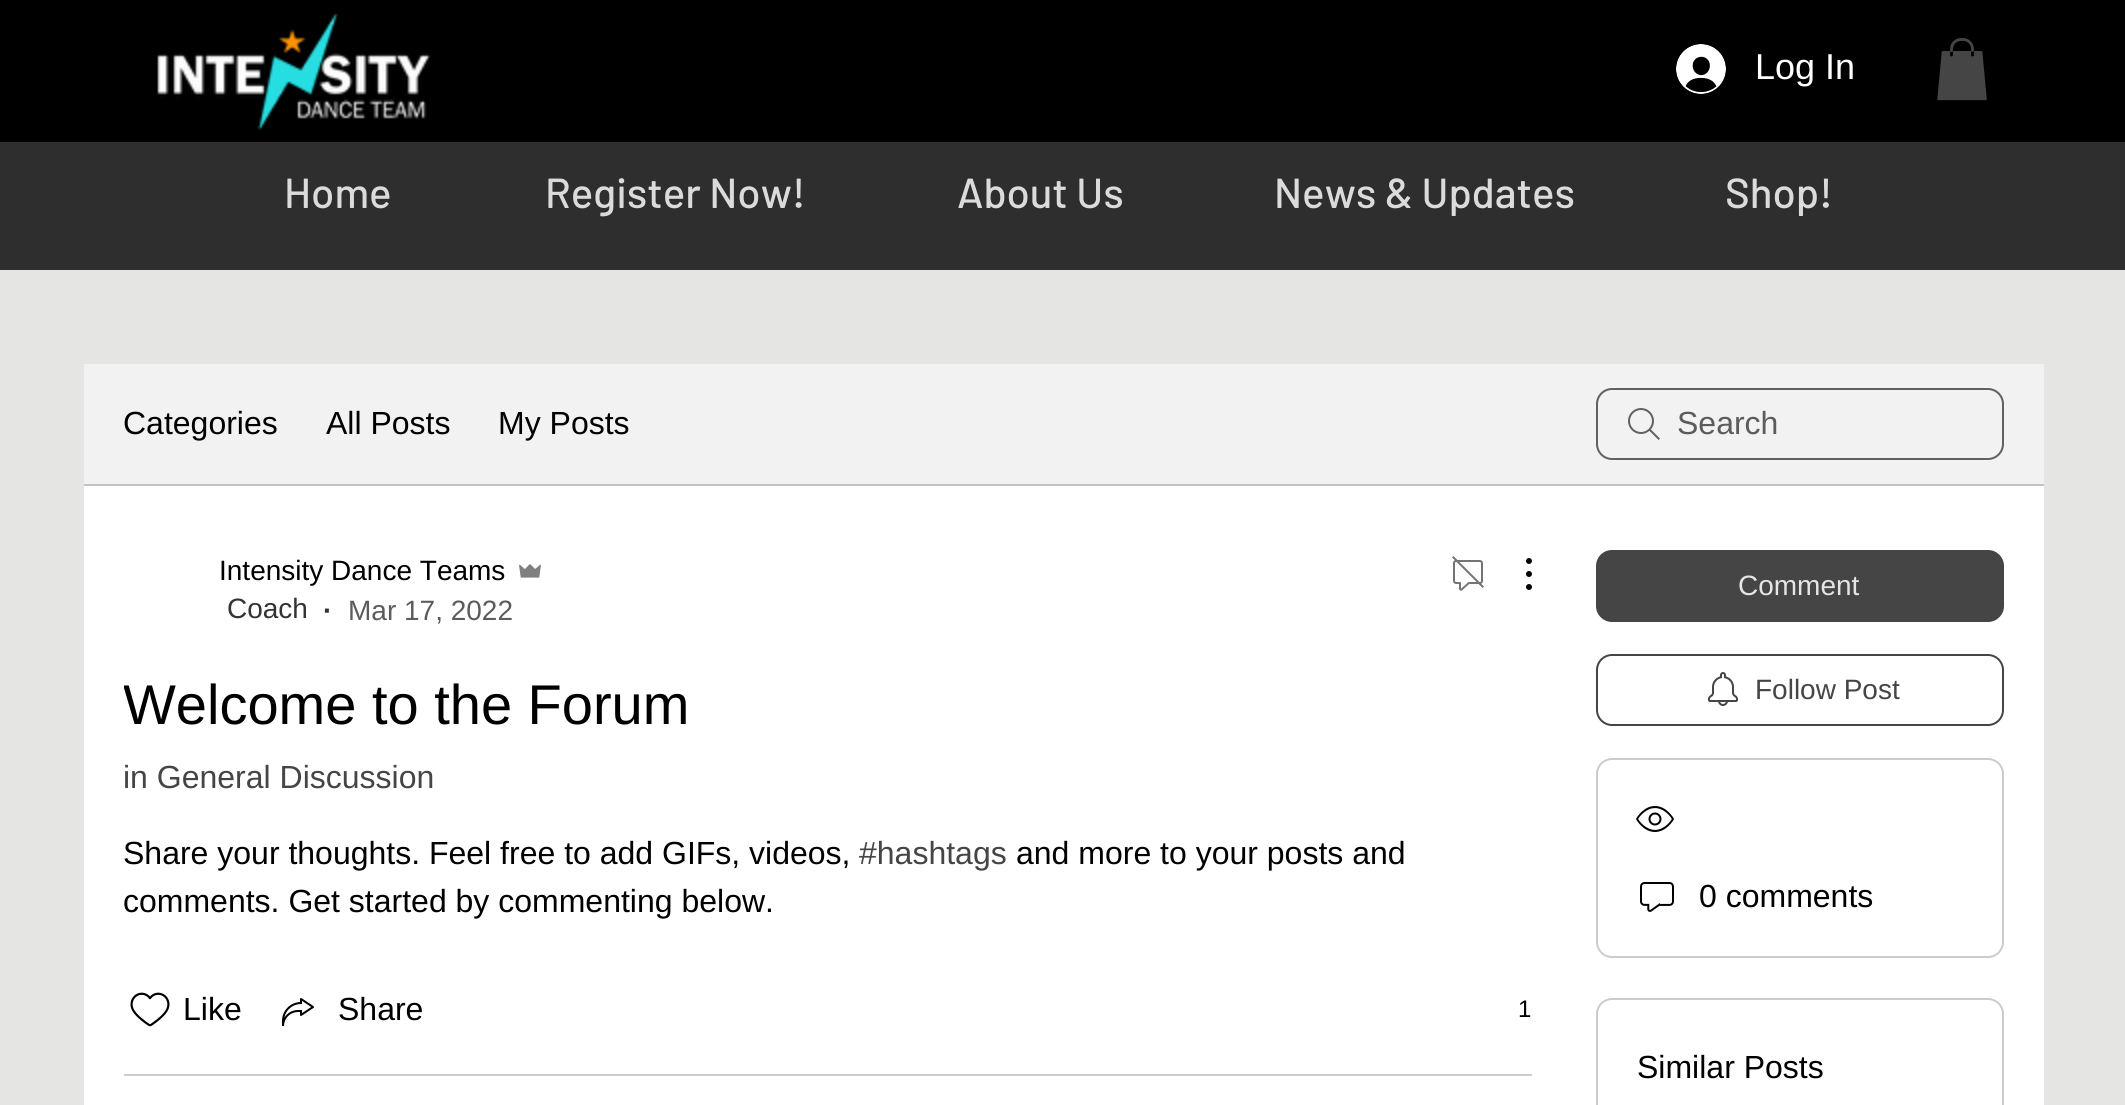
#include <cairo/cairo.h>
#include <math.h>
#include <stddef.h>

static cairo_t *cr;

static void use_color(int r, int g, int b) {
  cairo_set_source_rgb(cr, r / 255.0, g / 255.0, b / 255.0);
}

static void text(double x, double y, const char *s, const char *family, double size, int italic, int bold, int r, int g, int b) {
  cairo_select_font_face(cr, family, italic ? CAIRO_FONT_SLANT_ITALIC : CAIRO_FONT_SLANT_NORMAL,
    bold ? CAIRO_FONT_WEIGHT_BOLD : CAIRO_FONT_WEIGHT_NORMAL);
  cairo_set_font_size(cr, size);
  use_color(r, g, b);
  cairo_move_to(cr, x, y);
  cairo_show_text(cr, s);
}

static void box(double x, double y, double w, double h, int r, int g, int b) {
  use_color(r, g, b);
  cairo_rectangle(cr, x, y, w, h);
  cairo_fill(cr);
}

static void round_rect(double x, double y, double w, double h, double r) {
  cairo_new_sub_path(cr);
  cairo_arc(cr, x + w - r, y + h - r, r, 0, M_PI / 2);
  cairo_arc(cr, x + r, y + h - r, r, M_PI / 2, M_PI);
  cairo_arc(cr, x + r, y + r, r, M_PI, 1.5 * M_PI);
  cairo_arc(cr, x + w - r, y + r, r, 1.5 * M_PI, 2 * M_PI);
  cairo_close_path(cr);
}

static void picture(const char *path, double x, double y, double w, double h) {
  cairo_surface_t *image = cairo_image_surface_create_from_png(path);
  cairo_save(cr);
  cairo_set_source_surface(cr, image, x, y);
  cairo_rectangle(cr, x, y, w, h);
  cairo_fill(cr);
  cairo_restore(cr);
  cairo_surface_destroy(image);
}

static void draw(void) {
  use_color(229, 229, 228);
  cairo_paint(cr);
  box(0, 0, 2125, 142, 0, 0, 0);
  picture("img_01.png", 157, 13, 274, 118);
  picture("img_02.png", 1676, 44, 50, 50);
  picture("img_03.png", 1937, 38, 50, 63);
  box(0, 142, 2125, 128, 46, 46, 46);
  box(84, 486, 1960, 619, 255, 255, 255);
  box(84, 364, 1960, 120, 242, 242, 242);
  box(84, 484, 1960, 2, 194, 194, 194);
  picture("img_04.png", 1628, 408, 32, 32);
  round_rect(1597, 389, 406, 70, 15);
  use_color(97, 97, 97);
  cairo_stroke(cr);
  picture("img_05.png", 519, 564, 22, 14);
  picture("img_06.png", 1452, 556, 32, 35);
  picture("img_07.png", 1526, 558, 6, 32);
  picture("img_08.png", 130, 992, 40, 35);
  picture("img_09.png", 282, 998, 32, 28);
  box(124, 1074, 1408, 2, 204, 204, 204);
  use_color(69, 69, 69);
  round_rect(1596, 550, 408, 72, 16);
  cairo_fill(cr);
  round_rect(1597, 655, 406, 70, 15);
  cairo_stroke(cr);
  picture("img_10.png", 1708, 672, 30, 34);
  round_rect(1597, 759, 406, 198, 15);
  use_color(204, 204, 204);
  cairo_stroke(cr);
  picture("img_11.png", 1636, 806, 38, 26);
  picture("img_12.png", 1640, 882, 34, 30);
  round_rect(1597, 999, 406, 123, 15);
  cairo_stroke(cr);
  text(1755, 79, "Log In", "Liberation Sans", 36, 0, 0, 255, 255, 255);
  text(284, 208, "Home", "Barlow Medium", 42, 0, 0, 219, 219, 219);
  text(545, 208, "Register Now!", "Barlow Medium", 42, 0, 0, 219, 219, 219);
  text(957, 208, "About Us", "Barlow Medium", 42, 0, 0, 219, 219, 219);
  text(1274, 208, "News & Updates", "Barlow Medium", 42, 0, 0, 219, 219, 219);
  text(1725, 208, "Shop!", "Barlow Medium", 42, 0, 0, 219, 219, 219);
  text(123, 434, "Categories", "Liberation Sans", 32, 0, 0, 0, 0, 0);
  text(326, 434, "All Posts", "Liberation Sans", 32, 0, 0, 0, 0, 0);
  text(498, 434, "My Posts", "Liberation Sans", 32, 0, 0, 0, 0, 0);
  text(1677, 434, "Search", "Liberation Sans", 32, 0, 0, 92, 92, 92);
  text(219, 580, "Intensity Dance Teams", "Liberation Sans", 28, 0, 0, 0, 0, 0);
  text(227, 618, "Coach", "Liberation Sans", 28, 0, 0, 51, 51, 51);
  text(323, 620, "·", "Liberation Sans", 28, 0, 1, 51, 51, 51);
  text(348, 620, "Mar 17, 2022", "Liberation Sans", 28, 0, 0, 92, 92, 92);
  cairo_save(cr);
  cairo_rectangle(cr, 124, 670, 566, 72);
  cairo_clip(cr);
  text(123, 724, "Welcome to the Forum", "Liberation Sans", 56, 0, 0, 0, 0, 0);
  cairo_restore(cr);
  text(123, 788, "in General Discussion", "Liberation Sans", 32, 0, 0, 69, 69, 69);
  text(123, 864, "Share your thoughts. Feel free to add GIFs, videos,", "Liberation Sans", 32, 0, 0, 0, 0, 0);
  text(859, 864, "#hashtags", "Liberation Sans", 32, 0, 0, 69, 69, 69);
  text(1016, 864, "and more to your posts and", "Liberation Sans", 32, 0, 0, 0, 0, 0);
  text(123, 912, "comments. Get started by commenting below.", "Liberation Sans", 32, 0, 0, 0, 0, 0);
  text(183, 1020, "Like", "Liberation Sans", 32, 0, 0, 0, 0, 0);
  text(338, 1020, "Share", "Liberation Sans", 32, 0, 0, 0, 0, 0);
  text(1518, 1017, "1", "Liberation Sans", 24, 0, 0, 0, 0, 0);
  text(1738, 595, "Comment", "Liberation Sans", 28, 0, 0, 229, 229, 228);
  text(1755, 699, "Follow Post", "Liberation Sans", 28, 0, 0, 69, 69, 69);
  text(1699, 907, "0 comments", "Liberation Sans", 32, 0, 0, 0, 0, 0);
  text(1637, 1078, "Similar Posts", "Liberation Sans", 32, 0, 0, 0, 0, 0);
}

int main(void) {
  cairo_surface_t *surface = cairo_image_surface_create(CAIRO_FORMAT_RGB24, 2125, 1105);
  cr = cairo_create(surface);
  cairo_font_options_t *options = cairo_font_options_create();
  cairo_font_options_set_hint_metrics(options, CAIRO_HINT_METRICS_OFF);
  cairo_font_options_set_hint_style(options, CAIRO_HINT_STYLE_NONE);
  cairo_set_font_options(cr, options);
  cairo_set_miter_limit(cr, 4);
  draw();
  cairo_surface_write_to_png(surface, "out.png");
  cairo_font_options_destroy(options);
  cairo_destroy(cr);
  cairo_surface_destroy(surface);
  return 0;
}
